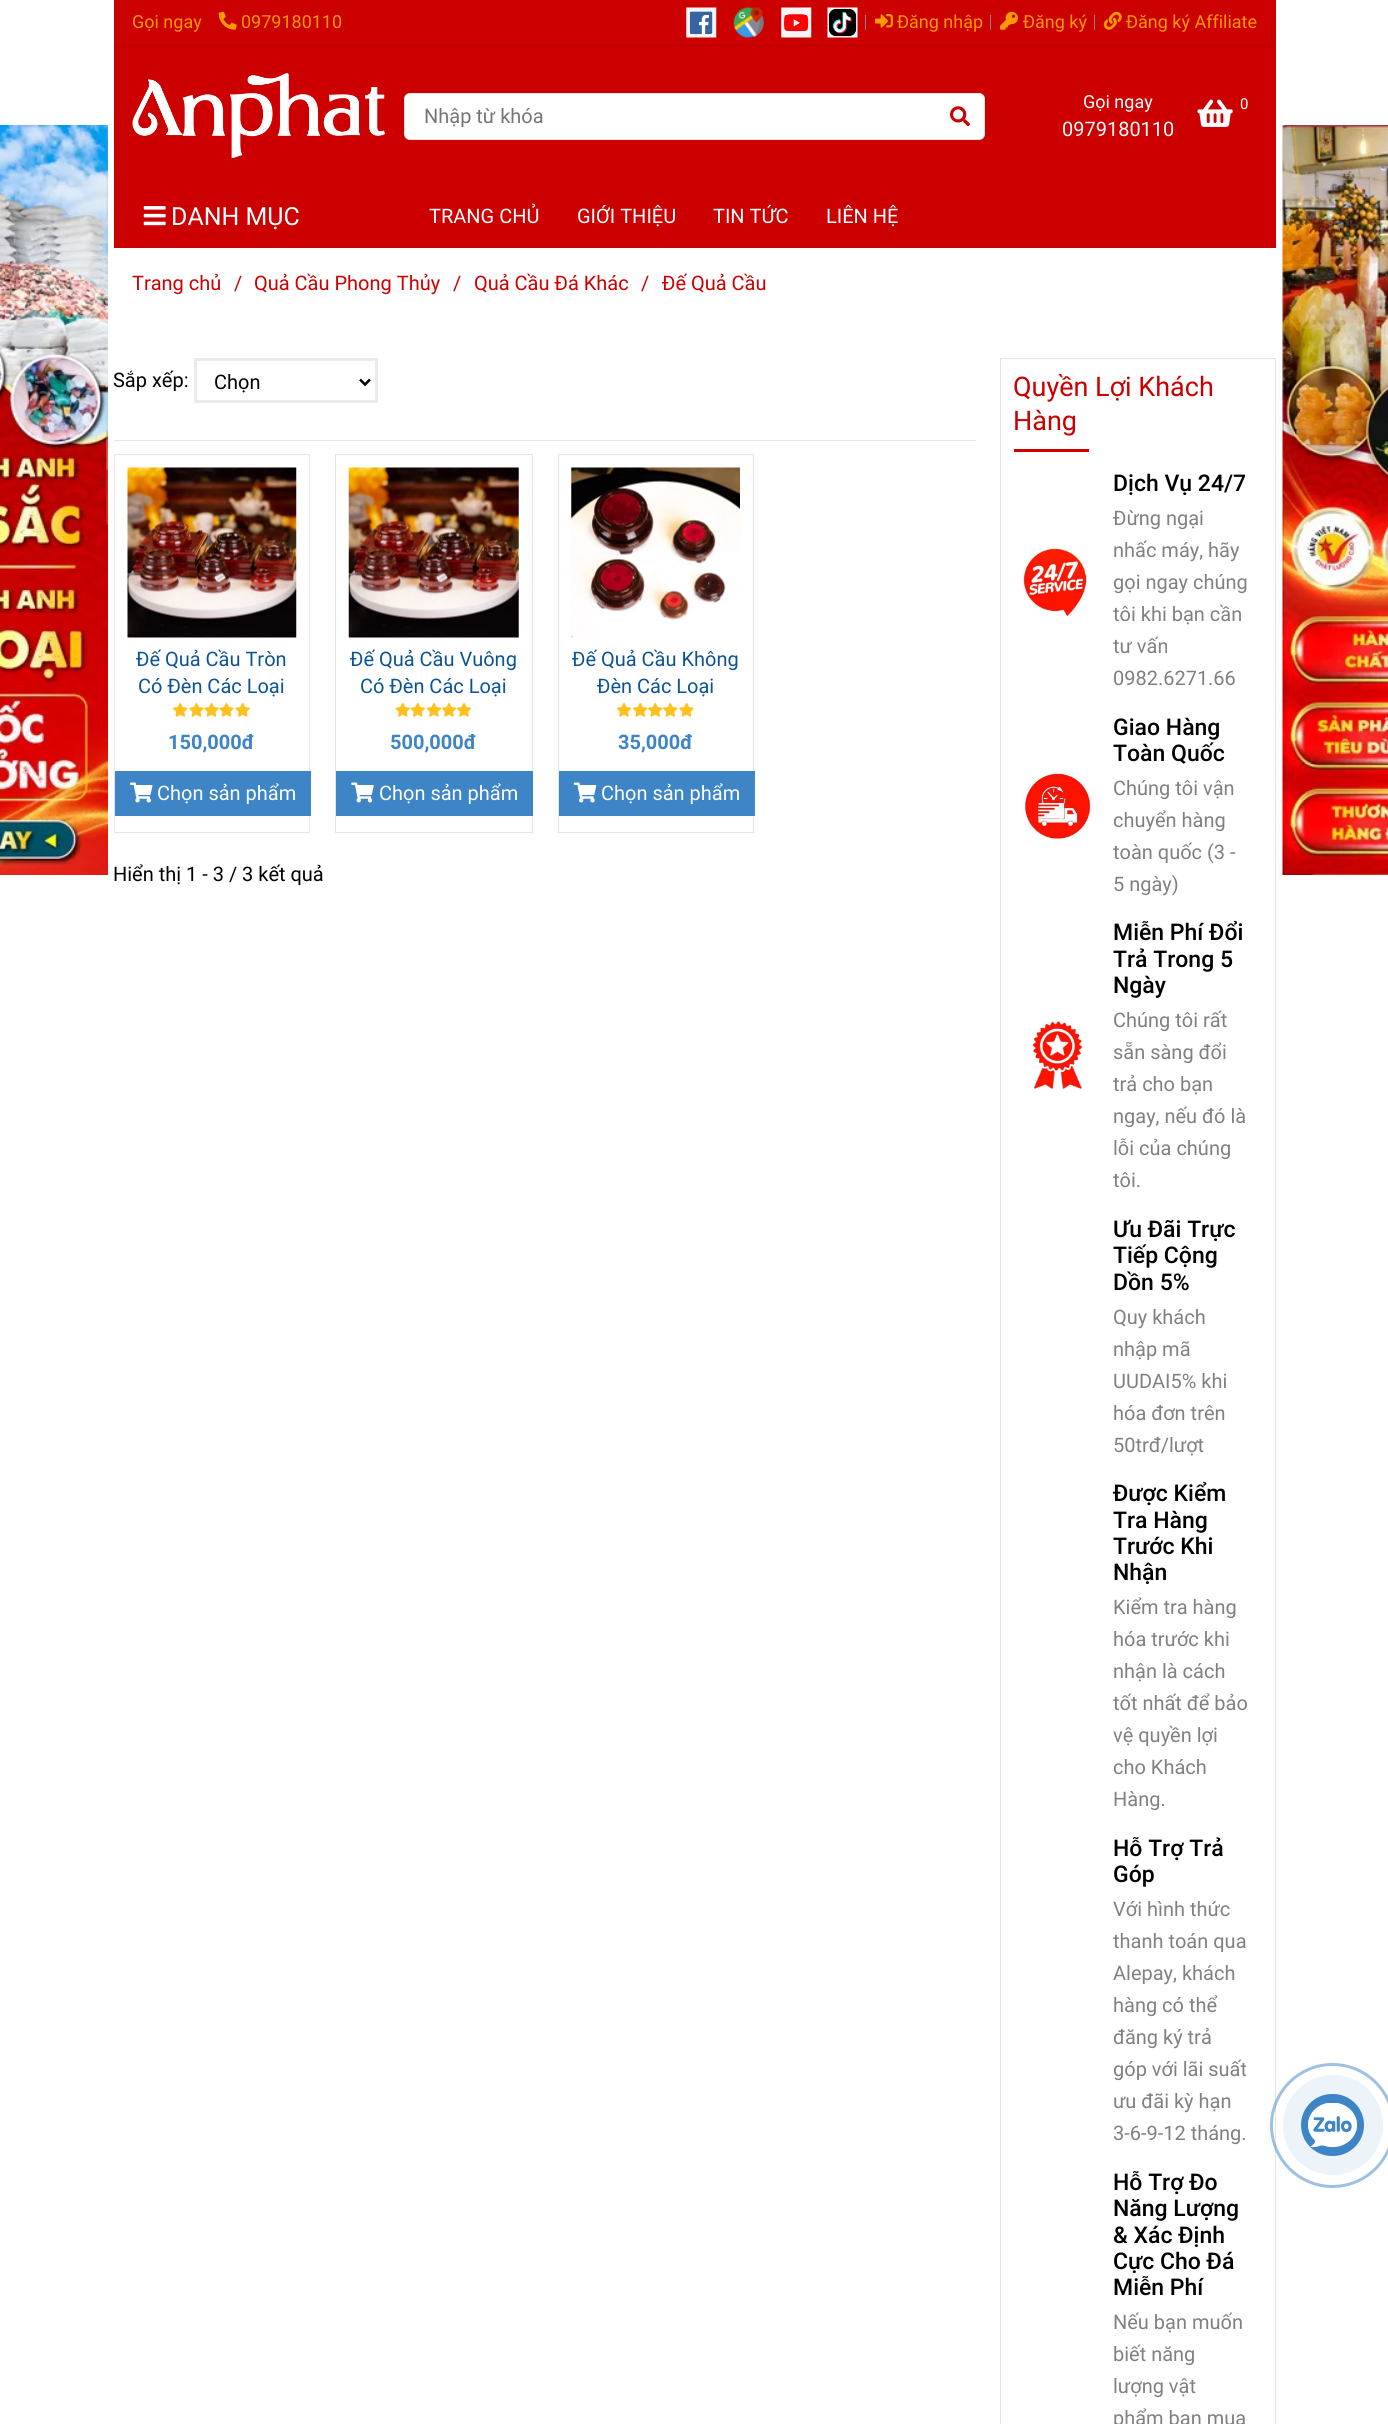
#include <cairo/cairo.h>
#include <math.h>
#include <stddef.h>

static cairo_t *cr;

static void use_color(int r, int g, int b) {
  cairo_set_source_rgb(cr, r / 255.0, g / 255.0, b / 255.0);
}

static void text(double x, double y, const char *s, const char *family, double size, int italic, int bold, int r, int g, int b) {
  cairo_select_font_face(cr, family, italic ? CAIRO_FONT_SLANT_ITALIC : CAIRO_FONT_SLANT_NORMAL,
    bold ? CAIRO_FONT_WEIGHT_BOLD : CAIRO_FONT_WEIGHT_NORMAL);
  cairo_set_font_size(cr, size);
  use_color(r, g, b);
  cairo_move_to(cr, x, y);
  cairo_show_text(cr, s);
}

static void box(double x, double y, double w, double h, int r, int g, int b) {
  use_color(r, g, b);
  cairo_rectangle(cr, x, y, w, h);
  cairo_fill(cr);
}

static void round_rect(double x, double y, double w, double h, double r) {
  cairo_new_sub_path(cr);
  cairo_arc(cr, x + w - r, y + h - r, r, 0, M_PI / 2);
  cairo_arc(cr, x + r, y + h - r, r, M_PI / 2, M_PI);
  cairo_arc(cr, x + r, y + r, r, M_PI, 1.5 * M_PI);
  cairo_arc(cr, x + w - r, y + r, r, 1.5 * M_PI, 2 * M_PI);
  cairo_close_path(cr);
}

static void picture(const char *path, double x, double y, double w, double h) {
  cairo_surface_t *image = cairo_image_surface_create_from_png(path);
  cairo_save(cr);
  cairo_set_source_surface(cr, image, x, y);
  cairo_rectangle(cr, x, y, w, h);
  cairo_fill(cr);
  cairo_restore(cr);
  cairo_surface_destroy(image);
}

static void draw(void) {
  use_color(255, 255, 255);
  cairo_paint(cr);
  box(114, 0, 1162, 45, 204, 0, 0);
  box(114, 45, 1162, 1, 188, 0, 0);
  picture("img_01.png", 218, 11, 19, 19);
  picture("img_02.png", 686, 7, 31, 31);
  picture("img_03.png", 733, 7, 31, 31);
  picture("img_04.png", 781, 7, 31, 31);
  picture("img_05.png", 827, 7, 31, 31);
  box(865, 15, 1, 15, 130, 134, 134);
  picture("img_06.png", 875, 14, 18, 14);
  box(990, 15, 1, 15, 130, 134, 134);
  picture("img_07.png", 1000, 11, 18, 19);
  box(1094, 15, 1, 15, 130, 134, 134);
  picture("img_08.png", 1103, 11, 19, 19);
  box(114, 46, 1162, 202, 204, 0, 0);
  picture("img_09.png", 132, 73, 253, 85);
  use_color(255, 255, 255);
  round_rect(404.5, 93.5, 580, 46, 5.5);
  cairo_fill_preserve(cr);
  use_color(229, 229, 229);
  cairo_set_line_width(cr, 1);
  cairo_stroke(cr);
  picture("img_10.png", 950, 106, 20, 21);
  picture("img_11.png", 1197, 99, 36, 28);
  picture("img_12.png", 143, 206, 23, 20);
  picture("img_13.png", 0, 125, 108, 750);
  cairo_rectangle(cr, 195.5, 359.5, 181, 42);
  use_color(235, 235, 235);
  cairo_set_line_width(cr, 3);
  cairo_stroke(cr);
  cairo_new_path(cr);
  cairo_move_to(cr, 360, 379.5);
  cairo_line_to(cr, 365, 384.5);
  cairo_line_to(cr, 370, 379.5);
  use_color(0, 0, 0);
  cairo_set_line_width(cr, 2.5);
  cairo_stroke(cr);
  box(114, 440, 862, 1, 230, 230, 230);
  cairo_rectangle(cr, 114.5, 454.5, 195, 378);
  use_color(226, 230, 231);
  cairo_set_line_width(cr, 1);
  cairo_stroke(cr);
  picture("img_14.png", 127, 467, 170, 171);
  picture("img_15.png", 173, 703, 15, 14);
  picture("img_16.png", 189, 703, 15, 14);
  picture("img_16.png", 204, 703, 15, 14);
  picture("img_16.png", 219, 703, 15, 14);
  picture("img_17.png", 235, 703, 15, 14);
  box(115, 771, 196, 45, 61, 133, 198);
  picture("img_18.png", 130, 782, 23, 21);
  cairo_rectangle(cr, 335.5, 454.5, 197, 378);
  use_color(226, 230, 231);
  cairo_stroke(cr);
  picture("img_19.png", 348, 467, 171, 171);
  picture("img_17.png", 395, 703, 15, 14);
  picture("img_17.png", 410, 703, 15, 14);
  picture("img_20.png", 426, 703, 15, 14);
  picture("img_20.png", 441, 703, 15, 14);
  picture("img_21.png", 456, 703, 16, 14);
  box(336, 771, 197, 45, 61, 133, 198);
  picture("img_22.png", 351, 782, 23, 21);
  cairo_rectangle(cr, 558.5, 454.5, 195, 378);
  use_color(226, 230, 231);
  cairo_stroke(cr);
  picture("img_23.png", 571, 467, 169, 171);
  picture("img_21.png", 616, 703, 16, 14);
  picture("img_15.png", 633, 703, 15, 14);
  picture("img_15.png", 648, 703, 15, 14);
  picture("img_15.png", 663, 703, 15, 14);
  picture("img_16.png", 679, 703, 15, 14);
  box(559, 771, 196, 45, 61, 133, 198);
  picture("img_24.png", 573, 782, 24, 21);
  cairo_rectangle(cr, 1000.5, 358.5, 275, 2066);
  use_color(226, 230, 231);
  cairo_stroke(cr);
  box(1014, 449, 75, 3, 204, 0, 0);
  picture("img_25.png", 1022, 548, 65, 69);
  picture("img_26.png", 1023, 773, 70, 68);
  picture("img_27.png", 1032, 1021, 51, 69);
  picture("img_28.png", 1282, 125, 106, 750);
  cairo_arc(cr, 1332.5, 2125.5, 61, 0, 2 * M_PI);
  cairo_set_source_rgba(cr, 0.239, 0.522, 0.776, 0.5);
  cairo_set_line_width(cr, 3);
  cairo_stroke(cr);
  use_color(236, 243, 249);
  cairo_arc(cr, 1333, 2125, 50, 0, 2 * M_PI);
  cairo_fill(cr);
  use_color(61, 133, 198);
  round_rect(1301, 2094, 63, 62, 31);
  cairo_fill(cr);
  picture("img_29.png", 1308, 2103, 50, 45);
  text(132, 28, "Gọi ngay", "Roboto", 18, 0, 0, 255, 153, 0);
  text(241, 28, "0979180110", "Roboto", 18, 0, 0, 255, 153, 0);
  text(897, 28, "Đăng nhập", "Roboto", 18, 0, 0, 255, 153, 0);
  text(1023, 28, "Đăng ký", "Roboto", 18, 0, 0, 255, 153, 0);
  text(1126, 28, "Đăng ký Affiliate", "Roboto", 18, 0, 0, 255, 153, 0);
  text(424, 123, "Nhập từ khóa", "Roboto", 20, 0, 0, 117, 117, 117);
  text(1083, 108, "Gọi ngay", "Roboto", 18, 0, 0, 255, 255, 255);
  text(1062, 136, "0979180110", "Roboto", 20, 0, 0, 255, 255, 255);
  text(1240, 109, "0", "Roboto", 15, 0, 0, 255, 255, 255);
  text(171, 225, "DANH MỤC", "Roboto", 25, 0, 0, 255, 255, 255);
  text(429, 223, "TRANG CHỦ", "Roboto", 20, 0, 0, 255, 255, 255);
  text(577, 223, "GIỚI THIỆU", "Roboto", 20, 0, 0, 255, 255, 255);
  text(713, 223, "TIN TỨC", "Roboto", 20, 0, 0, 255, 255, 255);
  text(826, 223, "LIÊN HỆ", "Roboto", 20, 0, 0, 255, 255, 255);
  text(132, 290, "Trang chủ", "Roboto", 20, 0, 0, 204, 0, 0);
  text(234, 290, "/", "Roboto", 20, 0, 0, 204, 0, 0);
  text(254, 290, "Quả Cầu Phong Thủy", "Roboto", 20, 0, 0, 204, 0, 0);
  text(453, 290, "/", "Roboto", 20, 0, 0, 204, 0, 0);
  text(474, 290, "Quả Cầu Đá Khác", "Roboto", 20, 0, 0, 204, 0, 0);
  text(641, 290, "/", "Roboto", 20, 0, 0, 204, 0, 0);
  text(662, 290, "Đế Quả Cầu", "Roboto", 20, 0, 0, 204, 0, 0);
  text(113, 387, "Sắp xếp:", "Roboto", 20, 0, 0, 0, 0, 0);
  text(214, 389, "Chọn", "Roboto", 20, 0, 0, 0, 0, 0);
  text(136, 666, "Đế Quả Cầu Tròn", "Roboto", 20, 0, 0, 11, 83, 148);
  text(138, 693, "Có Đèn Các Loại", "Roboto", 20, 0, 0, 11, 83, 148);
  text(168, 749, "150,000đ", "Roboto", 20, 0, 1, 61, 133, 198);
  text(157, 800, "Chọn sản phẩm", "Roboto", 20, 0, 0, 255, 255, 255);
  text(350, 666, "Đế Quả Cầu Vuông", "Roboto", 20, 0, 0, 11, 83, 148);
  text(360, 693, "Có Đèn Các Loại", "Roboto", 20, 0, 0, 11, 83, 148);
  text(390, 749, "500,000đ", "Roboto", 20, 0, 1, 61, 133, 198);
  text(379, 800, "Chọn sản phẩm", "Roboto", 20, 0, 0, 255, 255, 255);
  text(572, 666, "Đế Quả Cầu Không", "Roboto", 20, 0, 0, 11, 83, 148);
  text(597, 693, "Đèn Các Loại", "Roboto", 20, 0, 0, 11, 83, 148);
  text(618, 749, "35,000đ", "Roboto", 20, 0, 1, 61, 133, 198);
  text(601, 800, "Chọn sản phẩm", "Roboto", 20, 0, 0, 255, 255, 255);
  text(113, 881, "Hiển thị 1 - 3 / 3 kết quả", "Roboto", 20, 0, 0, 0, 0, 0);
  text(1013, 396, "Quyền Lợi Khách", "Roboto", 27, 0, 0, 204, 0, 0);
  text(1013, 430, "Hàng", "Roboto", 27, 0, 0, 204, 0, 0);
  text(1113, 491, "Dịch Vụ 24/7", "Roboto Medium", 23, 0, 0, 0, 0, 0);
  text(1113, 525, "Đừng ngại", "Roboto", 20, 0, 0, 128, 128, 128);
  text(1113, 557, "nhấc máy, hãy", "Roboto", 20, 0, 0, 128, 128, 128);
  text(1113, 589, "gọi ngay chúng", "Roboto", 20, 0, 0, 128, 128, 128);
  text(1113, 621, "tôi khi bạn cần", "Roboto", 20, 0, 0, 128, 128, 128);
  text(1113, 653, "tư vấn", "Roboto", 20, 0, 0, 128, 128, 128);
  text(1113, 685, "0982.6271.66", "Roboto", 20, 0, 0, 128, 128, 128);
  text(1113, 735, "Giao Hàng", "Roboto Medium", 23, 0, 0, 0, 0, 0);
  text(1113, 761, "Toàn Quốc", "Roboto Medium", 23, 0, 0, 0, 0, 0);
  text(1113, 795, "Chúng tôi vận", "Roboto", 20, 0, 0, 128, 128, 128);
  text(1113, 827, "chuyển hàng", "Roboto", 20, 0, 0, 128, 128, 128);
  text(1113, 859, "toàn quốc (3 -", "Roboto", 20, 0, 0, 128, 128, 128);
  text(1113, 891, "5 ngày)", "Roboto", 20, 0, 0, 128, 128, 128);
  text(1113, 940, "Miễn Phí Đổi", "Roboto Medium", 23, 0, 0, 0, 0, 0);
  text(1113, 967, "Trả Trong 5", "Roboto Medium", 23, 0, 0, 0, 0, 0);
  text(1113, 993, "Ngày", "Roboto Medium", 23, 0, 0, 0, 0, 0);
  text(1113, 1027, "Chúng tôi rất", "Roboto", 20, 0, 0, 128, 128, 128);
  text(1113, 1059, "sẵn sàng đổi", "Roboto", 20, 0, 0, 128, 128, 128);
  text(1113, 1091, "trả cho bạn", "Roboto", 20, 0, 0, 128, 128, 128);
  text(1113, 1123, "ngay, nếu đó là", "Roboto", 20, 0, 0, 128, 128, 128);
  text(1113, 1155, "lỗi của chúng", "Roboto", 20, 0, 0, 128, 128, 128);
  text(1113, 1187, "tôi.", "Roboto", 20, 0, 0, 128, 128, 128);
  text(1113, 1237, "Ưu Đãi Trực", "Roboto Medium", 23, 0, 0, 0, 0, 0);
  text(1113, 1263, "Tiếp Cộng", "Roboto Medium", 23, 0, 0, 0, 0, 0);
  text(1113, 1290, "Dồn 5%", "Roboto Medium", 23, 0, 0, 0, 0, 0);
  text(1113, 1324, "Quy khách", "Roboto", 20, 0, 0, 128, 128, 128);
  text(1113, 1356, "nhập mã", "Roboto", 20, 0, 0, 128, 128, 128);
  text(1113, 1388, "UUDAI5% khi", "Roboto", 20, 0, 0, 128, 128, 128);
  text(1113, 1420, "hóa đơn trên", "Roboto", 20, 0, 0, 128, 128, 128);
  text(1113, 1452, "50trđ/lượt", "Roboto", 20, 0, 0, 128, 128, 128);
  text(1113, 1501, "Được Kiểm", "Roboto Medium", 23, 0, 0, 0, 0, 0);
  text(1113, 1528, "Tra Hàng", "Roboto Medium", 23, 0, 0, 0, 0, 0);
  text(1113, 1554, "Trước Khi", "Roboto Medium", 23, 0, 0, 0, 0, 0);
  text(1113, 1580, "Nhận", "Roboto Medium", 23, 0, 0, 0, 0, 0);
  text(1113, 1614, "Kiểm tra hàng", "Roboto", 20, 0, 0, 128, 128, 128);
  text(1113, 1646, "hóa trước khi", "Roboto", 20, 0, 0, 128, 128, 128);
  text(1113, 1678, "nhận là cách", "Roboto", 20, 0, 0, 128, 128, 128);
  text(1113, 1710, "tốt nhất để bảo", "Roboto", 20, 0, 0, 128, 128, 128);
  text(1113, 1742, "vệ quyền lợi", "Roboto", 20, 0, 0, 128, 128, 128);
  text(1113, 1774, "cho Khách", "Roboto", 20, 0, 0, 128, 128, 128);
  text(1113, 1806, "Hàng.", "Roboto", 20, 0, 0, 128, 128, 128);
  text(1113, 1856, "Hỗ Trợ Trả", "Roboto Medium", 23, 0, 0, 0, 0, 0);
  text(1113, 1882, "Góp", "Roboto Medium", 23, 0, 0, 0, 0, 0);
  text(1113, 1916, "Với hình thức", "Roboto", 20, 0, 0, 128, 128, 128);
  text(1113, 1948, "thanh toán qua", "Roboto", 20, 0, 0, 128, 128, 128);
  text(1113, 1980, "Alepay, khách", "Roboto", 20, 0, 0, 128, 128, 128);
  text(1113, 2012, "hàng có thể", "Roboto", 20, 0, 0, 128, 128, 128);
  text(1113, 2044, "đăng ký trả", "Roboto", 20, 0, 0, 128, 128, 128);
  text(1113, 2076, "góp với lãi suất", "Roboto", 20, 0, 0, 128, 128, 128);
  text(1113, 2108, "ưu đãi kỳ hạn", "Roboto", 20, 0, 0, 128, 128, 128);
  text(1113, 2140, "3-6-9-12 tháng.", "Roboto", 20, 0, 0, 128, 128, 128);
  text(1113, 2190, "Hỗ Trợ Đo", "Roboto Medium", 23, 0, 0, 0, 0, 0);
  text(1113, 2216, "Năng Lượng", "Roboto Medium", 23, 0, 0, 0, 0, 0);
  text(1113, 2243, "& Xác Định", "Roboto Medium", 23, 0, 0, 0, 0, 0);
  text(1113, 2269, "Cực Cho Đá", "Roboto Medium", 23, 0, 0, 0, 0, 0);
  text(1113, 2295, "Miễn Phí", "Roboto Medium", 23, 0, 0, 0, 0, 0);
  text(1113, 2329, "Nếu bạn muốn", "Roboto", 20, 0, 0, 128, 128, 128);
  text(1113, 2361, "biết năng", "Roboto", 20, 0, 0, 128, 128, 128);
  text(1113, 2393, "lượng vật", "Roboto", 20, 0, 0, 128, 128, 128);
  text(1113, 2425, "phẩm bạn mua", "Roboto", 20, 0, 0, 128, 128, 128);
}

int main(void) {
  cairo_surface_t *surface = cairo_image_surface_create(CAIRO_FORMAT_RGB24, 1388, 2424);
  cr = cairo_create(surface);
  cairo_font_options_t *options = cairo_font_options_create();
  cairo_font_options_set_hint_metrics(options, CAIRO_HINT_METRICS_OFF);
  cairo_font_options_set_hint_style(options, CAIRO_HINT_STYLE_NONE);
  cairo_set_font_options(cr, options);
  cairo_set_miter_limit(cr, 4);
  draw();
  cairo_surface_write_to_png(surface, "out.png");
  cairo_font_options_destroy(options);
  cairo_destroy(cr);
  cairo_surface_destroy(surface);
  return 0;
}
